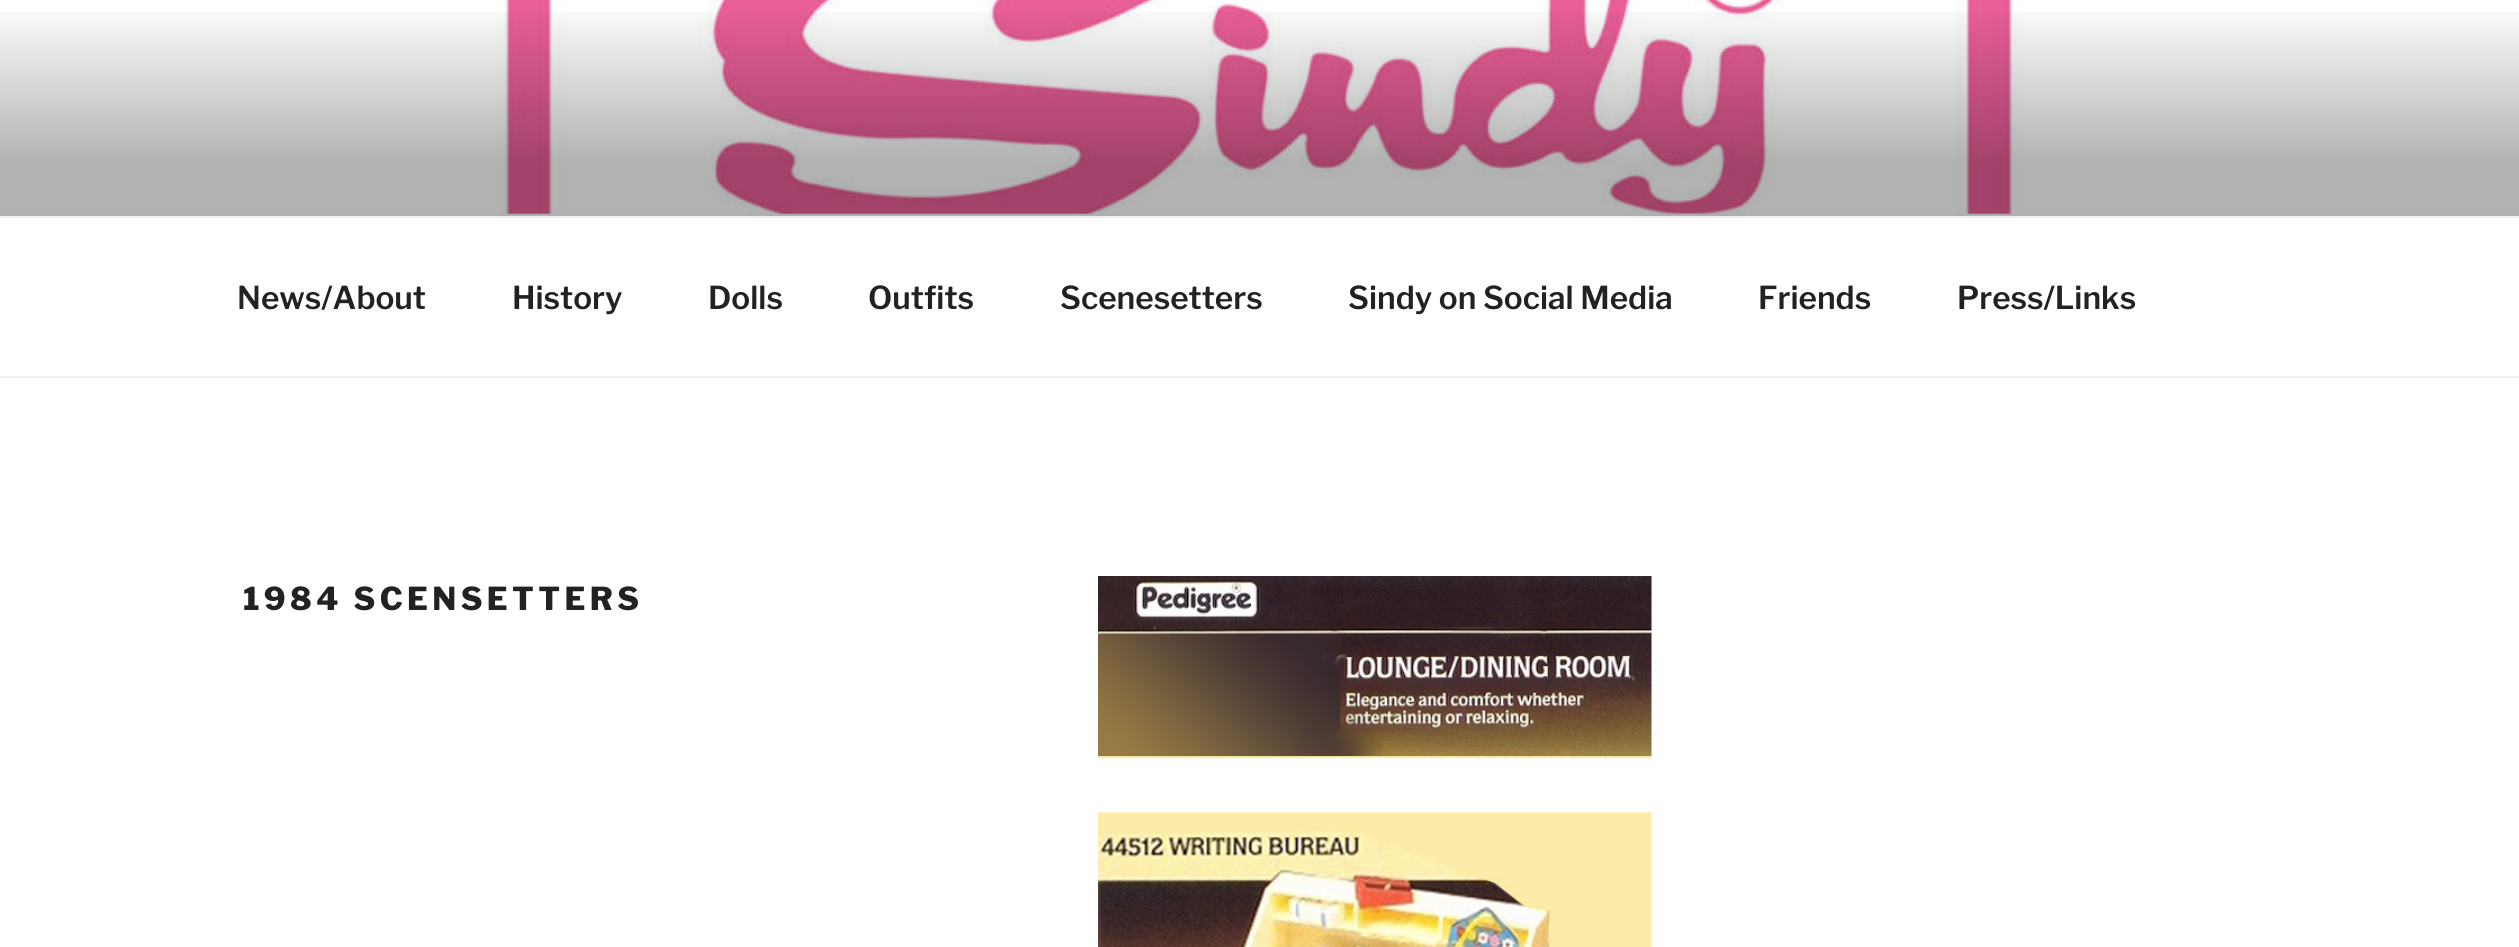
#include <cairo/cairo.h>
#include <math.h>
#include <stddef.h>

static cairo_t *cr;

static void use_color(int r, int g, int b) {
  cairo_set_source_rgb(cr, r / 255.0, g / 255.0, b / 255.0);
}

static void text(double x, double y, const char *s, const char *family, double size, int italic, int bold, int r, int g, int b) {
  cairo_select_font_face(cr, family, italic ? CAIRO_FONT_SLANT_ITALIC : CAIRO_FONT_SLANT_NORMAL,
    bold ? CAIRO_FONT_WEIGHT_BOLD : CAIRO_FONT_WEIGHT_NORMAL);
  cairo_set_font_size(cr, size);
  use_color(r, g, b);
  cairo_move_to(cr, x, y);
  cairo_show_text(cr, s);
}

static void spaced_text(double x, double y, const char *s, double letter, double word) {
  cairo_move_to(cr, x, y);
  while (*s) {
    char ch[5] = {0};
    int n = 0;
    do ch[n++] = *s++; while ((*s & 0xC0) == 0x80);
    cairo_show_text(cr, ch);
    cairo_rel_move_to(cr, letter + word * (*ch == ' '), 0);
  }
}

static void box(double x, double y, double w, double h, int r, int g, int b) {
  use_color(r, g, b);
  cairo_rectangle(cr, x, y, w, h);
  cairo_fill(cr);
}

static void picture(const char *path, double x, double y, double w, double h) {
  cairo_surface_t *image = cairo_image_surface_create_from_png(path);
  cairo_save(cr);
  cairo_set_source_surface(cr, image, x, y);
  cairo_rectangle(cr, x, y, w, h);
  cairo_fill(cr);
  cairo_restore(cr);
  cairo_surface_destroy(image);
}

static void draw(void) {
  cairo_pattern_t *gradient;
  use_color(255, 255, 255);
  cairo_paint(cr);
  box(0, 213, 2519, 3, 250, 250, 250);
  picture("img_01.png", 0, 0, 2519, 214);
  gradient = cairo_pattern_create_linear(1260, 0, 1260, 216);
  cairo_pattern_add_color_stop_rgba(gradient, 0, 0, 0, 0, 0);
  cairo_pattern_add_color_stop_rgba(gradient, 0.75, 0, 0, 0, 0.3);
  cairo_pattern_add_color_stop_rgba(gradient, 1, 0, 0, 0, 0.3);
  cairo_set_source(cr, gradient);
  cairo_pattern_destroy(gradient);
  cairo_rectangle(cr, 0, 12, 2519, 204);
  cairo_fill(cr);
  box(0, 216, 2519, 2, 238, 238, 238);
  box(0, 376, 2519, 2, 238, 238, 238);
  picture("img_02.png", 1098, 576, 554, 183);
  picture("img_03.png", 1098, 812, 554, 135);
  text(237, 309, "News/About", "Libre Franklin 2 Thin", 31.5, 0, 0, 34, 34, 34);
  text(512, 309, "History", "Libre Franklin 2 Thin", 31.5, 0, 0, 34, 34, 34);
  text(708, 309, "Dolls", "Libre Franklin 2 Thin", 31.5, 0, 0, 34, 34, 34);
  text(868, 309, "Outfits", "Libre Franklin 2 Thin", 31.5, 0, 0, 34, 34, 34);
  text(1060, 309, "Scenesetters", "Libre Franklin 2 Thin", 31.5, 0, 0, 34, 34, 34);
  text(1348, 309, "Sindy on Social Media", "Libre Franklin 2 Thin", 31.5, 0, 0, 34, 34, 34);
  text(1758, 309, "Friends", "Libre Franklin 2 Thin", 31.5, 0, 0, 34, 34, 34);
  text(1957, 309, "Press/Links", "Libre Franklin 2 Thin", 31.5, 0, 0, 34, 34, 34);
  cairo_select_font_face(cr, "Libre Franklin Thin", CAIRO_FONT_SLANT_NORMAL, CAIRO_FONT_WEIGHT_NORMAL);
  spaced_text(243, 610, "1984 SCENSETTERS", 4.4, 0);
}

int main(void) {
  cairo_surface_t *surface = cairo_image_surface_create(CAIRO_FORMAT_RGB24, 2519, 947);
  cr = cairo_create(surface);
  cairo_font_options_t *options = cairo_font_options_create();
  cairo_font_options_set_hint_metrics(options, CAIRO_HINT_METRICS_OFF);
  cairo_font_options_set_hint_style(options, CAIRO_HINT_STYLE_NONE);
  cairo_set_font_options(cr, options);
  cairo_set_miter_limit(cr, 4);
  draw();
  cairo_surface_write_to_png(surface, "out.png");
  cairo_font_options_destroy(options);
  cairo_destroy(cr);
  cairo_surface_destroy(surface);
  return 0;
}
